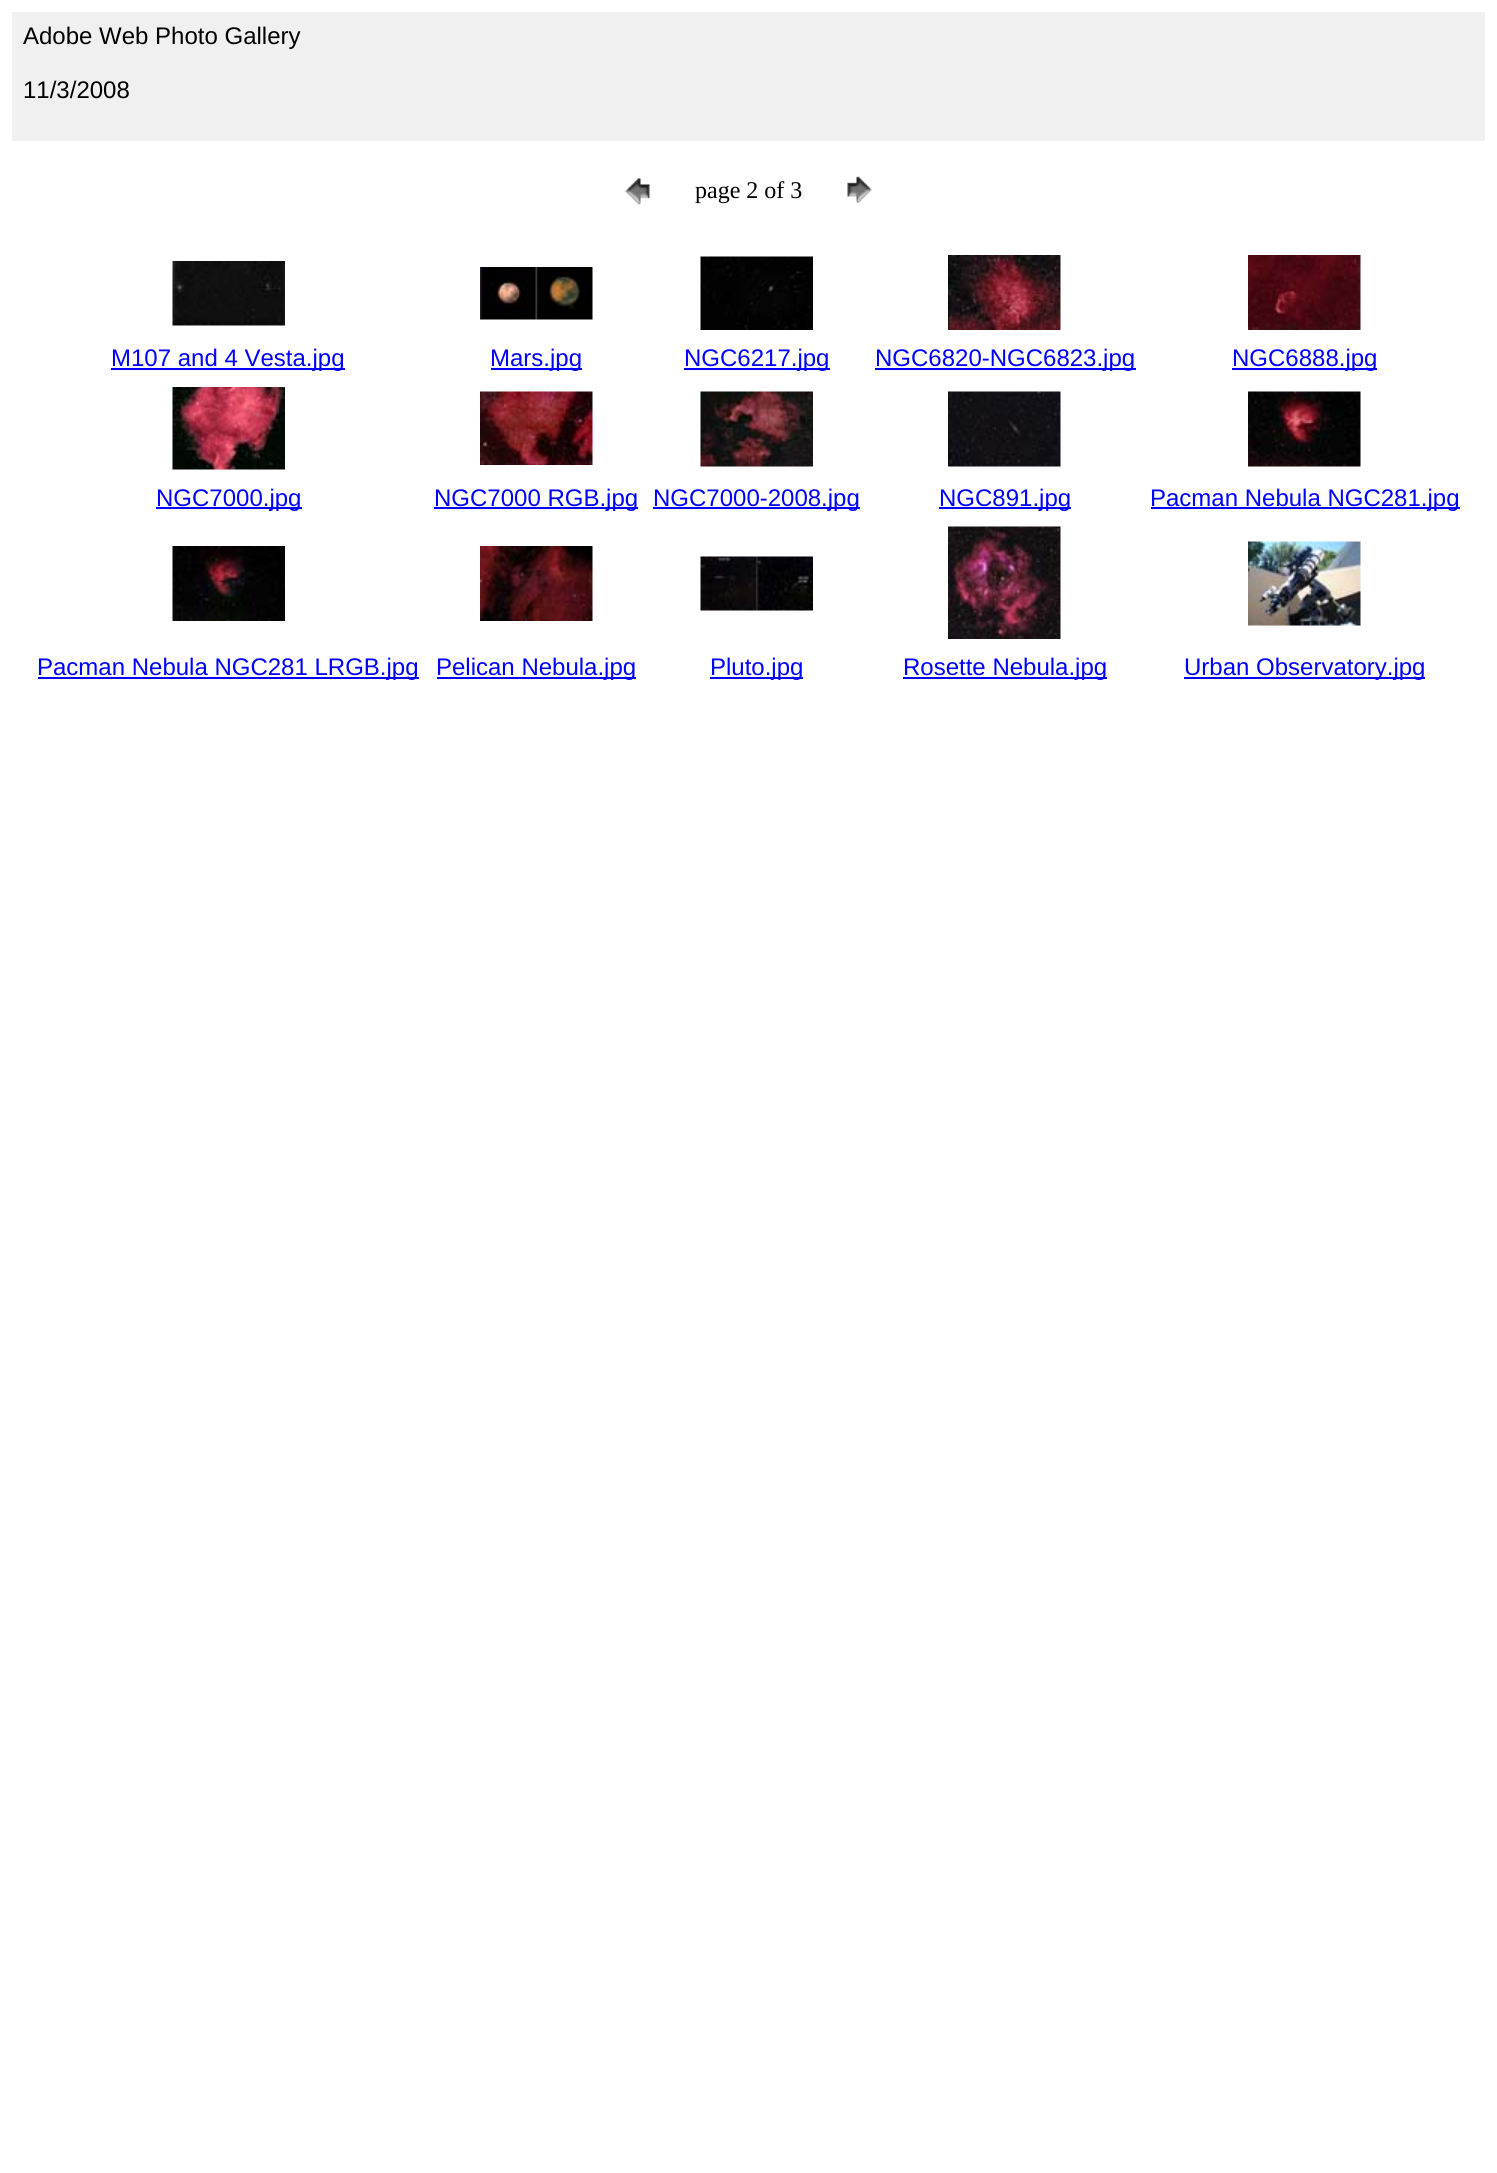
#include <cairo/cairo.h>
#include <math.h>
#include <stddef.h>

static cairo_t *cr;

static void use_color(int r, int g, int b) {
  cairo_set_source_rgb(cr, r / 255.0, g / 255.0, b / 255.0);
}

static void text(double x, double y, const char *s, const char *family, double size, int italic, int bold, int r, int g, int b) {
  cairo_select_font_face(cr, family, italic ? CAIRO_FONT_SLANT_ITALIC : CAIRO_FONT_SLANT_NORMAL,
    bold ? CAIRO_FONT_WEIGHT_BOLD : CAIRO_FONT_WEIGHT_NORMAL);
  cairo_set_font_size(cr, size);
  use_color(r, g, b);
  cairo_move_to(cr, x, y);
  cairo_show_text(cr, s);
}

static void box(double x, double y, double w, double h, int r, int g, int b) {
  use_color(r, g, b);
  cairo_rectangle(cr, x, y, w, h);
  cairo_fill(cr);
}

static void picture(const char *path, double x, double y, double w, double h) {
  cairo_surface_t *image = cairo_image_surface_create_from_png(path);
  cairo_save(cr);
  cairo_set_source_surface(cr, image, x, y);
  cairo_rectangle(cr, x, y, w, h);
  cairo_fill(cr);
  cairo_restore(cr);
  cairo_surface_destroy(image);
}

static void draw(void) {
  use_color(255, 255, 255);
  cairo_paint(cr);
  box(12, 12, 1473, 129, 240, 240, 240);
  picture("img_01.png", 625, 178, 25, 27);
  picture("img_02.png", 847, 176, 25, 27);
  picture("img_03.png", 172, 261, 113, 65);
  picture("img_04.png", 480, 267, 113, 53);
  picture("img_05.png", 700, 256, 113, 74);
  picture("img_06.png", 948, 255, 113, 75);
  picture("img_07.png", 1248, 255, 113, 75);
  box(111, 368, 234, 2, 0, 0, 255);
  box(491, 368, 91, 2, 0, 0, 255);
  box(684, 368, 146, 2, 0, 0, 255);
  box(875, 368, 261, 2, 0, 0, 255);
  box(1232, 368, 145, 2, 0, 0, 255);
  picture("img_08.png", 172, 387, 113, 83);
  picture("img_09.png", 480, 391, 113, 74);
  picture("img_10.png", 700, 391, 113, 76);
  picture("img_11.png", 948, 391, 113, 76);
  picture("img_12.png", 1248, 391, 113, 76);
  box(156, 507, 146, 2, 0, 0, 255);
  box(434, 507, 204, 2, 0, 0, 255);
  box(653, 507, 207, 2, 0, 0, 255);
  box(939, 507, 132, 2, 0, 0, 255);
  box(1151, 507, 309, 2, 0, 0, 255);
  picture("img_13.png", 172, 546, 113, 75);
  picture("img_14.png", 480, 546, 113, 75);
  picture("img_15.png", 700, 556, 113, 55);
  picture("img_16.png", 948, 526, 113, 113);
  picture("img_17.png", 1248, 541, 113, 85);
  box(38, 677, 381, 2, 0, 0, 255);
  box(437, 677, 199, 2, 0, 0, 255);
  box(710, 677, 93, 2, 0, 0, 255);
  box(903, 677, 204, 2, 0, 0, 255);
  box(1184, 677, 241, 2, 0, 0, 255);
  text(23, 44, "Adobe Web Photo Gallery", "Liberation Sans", 24, 0, 0, 0, 0, 0);
  text(23, 98, "11/3/2008", "Liberation Sans", 24, 0, 0, 0, 0, 0);
  text(695, 198, "page 2 of 3", "Liberation Serif", 24, 0, 0, 0, 0, 0);
  text(111, 366, "M107 and 4 Vesta.jpg", "Liberation Sans", 24, 0, 0, 0, 0, 255);
  text(490, 366, "Mars.jpg", "Liberation Sans", 24, 0, 0, 0, 0, 255);
  text(684, 366, "NGC6217.jpg", "Liberation Sans", 24, 0, 0, 0, 0, 255);
  text(875, 366, "NGC6820-NGC6823.jpg", "Liberation Sans", 24, 0, 0, 0, 0, 255);
  text(1232, 366, "NGC6888.jpg", "Liberation Sans", 24, 0, 0, 0, 0, 255);
  text(156, 506, "NGC7000.jpg", "Liberation Sans", 24, 0, 0, 0, 0, 255);
  text(434, 506, "NGC7000 RGB.jpg", "Liberation Sans", 24, 0, 0, 0, 0, 255);
  text(653, 506, "NGC7000-2008.jpg", "Liberation Sans", 24, 0, 0, 0, 0, 255);
  text(939, 506, "NGC891.jpg", "Liberation Sans", 24, 0, 0, 0, 0, 255);
  text(1150, 506, "Pacman Nebula NGC281.jpg", "Liberation Sans", 24, 0, 0, 0, 0, 255);
  text(37, 675, "Pacman Nebula NGC281 LRGB.jpg", "Liberation Sans", 24, 0, 0, 0, 0, 255);
  text(436, 675, "Pelican Nebula.jpg", "Liberation Sans", 24, 0, 0, 0, 0, 255);
  text(710, 675, "Pluto.jpg", "Liberation Sans", 24, 0, 0, 0, 0, 255);
  text(903, 675, "Rosette Nebula.jpg", "Liberation Sans", 24, 0, 0, 0, 0, 255);
  text(1184, 675, "Urban Observatory.jpg", "Liberation Sans", 24, 0, 0, 0, 0, 255);
}

int main(void) {
  cairo_surface_t *surface = cairo_image_surface_create(CAIRO_FORMAT_RGB24, 1497, 2173);
  cr = cairo_create(surface);
  cairo_font_options_t *options = cairo_font_options_create();
  cairo_font_options_set_hint_metrics(options, CAIRO_HINT_METRICS_OFF);
  cairo_font_options_set_hint_style(options, CAIRO_HINT_STYLE_NONE);
  cairo_set_font_options(cr, options);
  cairo_set_miter_limit(cr, 4);
  draw();
  cairo_surface_write_to_png(surface, "out.png");
  cairo_font_options_destroy(options);
  cairo_destroy(cr);
  cairo_surface_destroy(surface);
  return 0;
}
